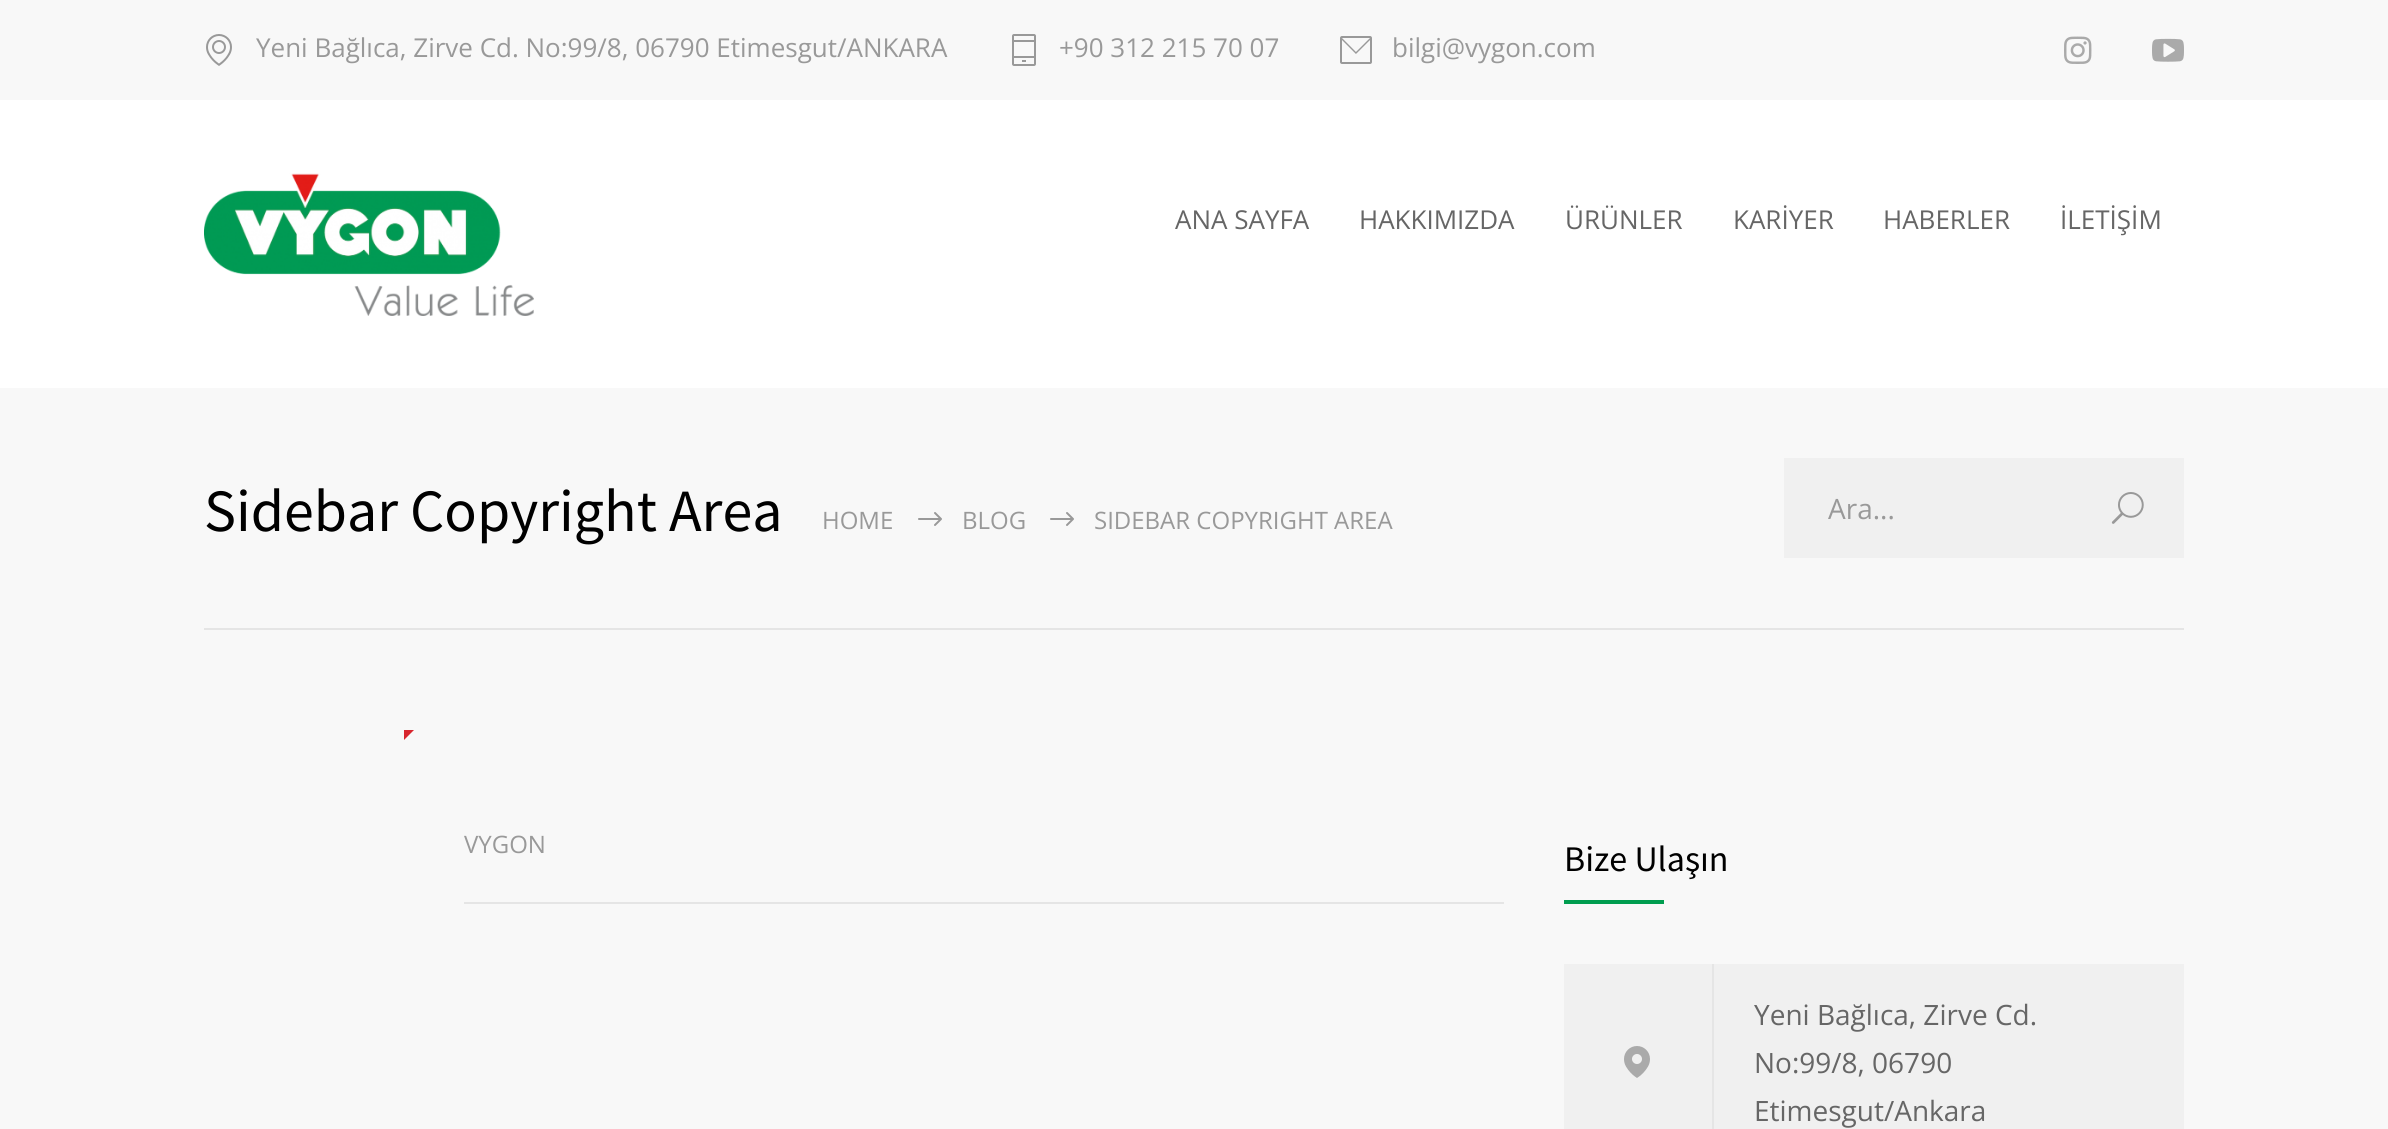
#include <cairo/cairo.h>
#include <math.h>
#include <stddef.h>

static cairo_t *cr;

static void use_color(int r, int g, int b) {
  cairo_set_source_rgb(cr, r / 255.0, g / 255.0, b / 255.0);
}

static void text(double x, double y, const char *s, const char *family, double size, int italic, int bold, int r, int g, int b) {
  cairo_select_font_face(cr, family, italic ? CAIRO_FONT_SLANT_ITALIC : CAIRO_FONT_SLANT_NORMAL,
    bold ? CAIRO_FONT_WEIGHT_BOLD : CAIRO_FONT_WEIGHT_NORMAL);
  cairo_set_font_size(cr, size);
  use_color(r, g, b);
  cairo_move_to(cr, x, y);
  cairo_show_text(cr, s);
}

static void box(double x, double y, double w, double h, int r, int g, int b) {
  use_color(r, g, b);
  cairo_rectangle(cr, x, y, w, h);
  cairo_fill(cr);
}

static void picture(const char *path, double x, double y, double w, double h) {
  cairo_surface_t *image = cairo_image_surface_create_from_png(path);
  cairo_save(cr);
  cairo_set_source_surface(cr, image, x, y);
  cairo_rectangle(cr, x, y, w, h);
  cairo_fill(cr);
  cairo_restore(cr);
  cairo_surface_destroy(image);
}

static void draw(void) {
  use_color(248, 248, 248);
  cairo_paint(cr);
  picture("img_01.png", 206, 34, 26, 32);
  picture("img_02.png", 1012, 34, 24, 32);
  picture("img_03.png", 1340, 36, 32, 28);
  picture("img_04.png", 2064, 36, 28, 28);
  picture("img_05.png", 2152, 38, 32, 24);
  box(0, 100, 2388, 288, 255, 255, 255);
  picture("img_06.png", 204, 173, 330, 143);
  box(204, 628, 1980, 2, 229, 229, 229);
  picture("img_07.png", 918, 512, 24, 14);
  picture("img_07.png", 1050, 512, 24, 14);
  box(1784, 458, 400, 100, 240, 240, 240);
  picture("img_08.png", 2111, 492, 33, 32);
  use_color(216, 38, 46);
  cairo_new_path(cr);
  cairo_move_to(cr, 404, 730);
  cairo_line_to(cr, 414, 730);
  cairo_line_to(cr, 404, 740);
  cairo_close_path(cr);
  cairo_fill(cr);
  box(464, 902, 1040, 2, 229, 229, 229);
  box(1564, 900, 100, 4, 0, 157, 79);
  box(1564, 964, 620, 165, 240, 240, 240);
  box(1712, 964, 2, 165, 229, 229, 229);
  picture("img_09.png", 1624, 1046, 26, 32);
  text(256, 57, "Yeni Bağlıca, Zirve Cd. No:99/8, 06790 Etimesgut/ANKARA", "Open Sans", 26, 0, 0, 153, 153, 153);
  text(1059, 57, "+90 312 215 70 07", "Open Sans", 26, 0, 0, 153, 153, 153);
  text(1392, 57, "bilgi@vygon.com", "Open Sans", 26, 0, 0, 153, 153, 153);
  text(1175, 229, "ANA SAYFA", "Open Sans", 26, 0, 0, 102, 102, 102);
  text(1359, 229, "HAKKIMIZDA", "Open Sans", 26, 0, 0, 102, 102, 102);
  text(1565, 229, "ÜRÜNLER", "Open Sans", 26, 0, 0, 102, 102, 102);
  text(1733, 229, "KARİYER", "Open Sans", 26, 0, 0, 102, 102, 102);
  text(1883, 229, "HABERLER", "Open Sans", 26, 0, 0, 102, 102, 102);
  text(2060, 229, "İLETİŞİM", "Open Sans", 26, 0, 0, 102, 102, 102);
  text(204, 531, "Sidebar Copyright Area", "Source Sans Pro", 60, 0, 0, 0, 0, 0);
  text(822, 529, "HOME", "Open Sans", 24, 0, 0, 153, 153, 153);
  text(962, 529, "BLOG", "Open Sans", 24, 0, 0, 153, 153, 153);
  text(1094, 529, "SIDEBAR COPYRIGHT AREA", "Open Sans", 24, 0, 0, 153, 153, 153);
  text(1828, 519, "Ara...", "Open Sans", 28, 0, 0, 153, 153, 153);
  text(464, 853, "VYGON", "Open Sans", 24, 0, 0, 153, 153, 153);
  text(1564, 871, "Bize Ulaşın", "Source Sans Pro", 36, 0, 0, 0, 0, 0);
  text(1754, 1025, "Yeni Bağlıca, Zirve Cd.", "Open Sans", 28, 0, 0, 102, 102, 102);
  text(1754, 1073, "No:99/8, 06790", "Open Sans", 28, 0, 0, 102, 102, 102);
  text(1754, 1121, "Etimesgut/Ankara", "Open Sans", 28, 0, 0, 102, 102, 102);
}

int main(void) {
  cairo_surface_t *surface = cairo_image_surface_create(CAIRO_FORMAT_RGB24, 2388, 1129);
  cr = cairo_create(surface);
  cairo_font_options_t *options = cairo_font_options_create();
  cairo_font_options_set_hint_metrics(options, CAIRO_HINT_METRICS_OFF);
  cairo_font_options_set_hint_style(options, CAIRO_HINT_STYLE_NONE);
  cairo_set_font_options(cr, options);
  cairo_set_miter_limit(cr, 4);
  draw();
  cairo_surface_write_to_png(surface, "out.png");
  cairo_font_options_destroy(options);
  cairo_destroy(cr);
  cairo_surface_destroy(surface);
  return 0;
}
